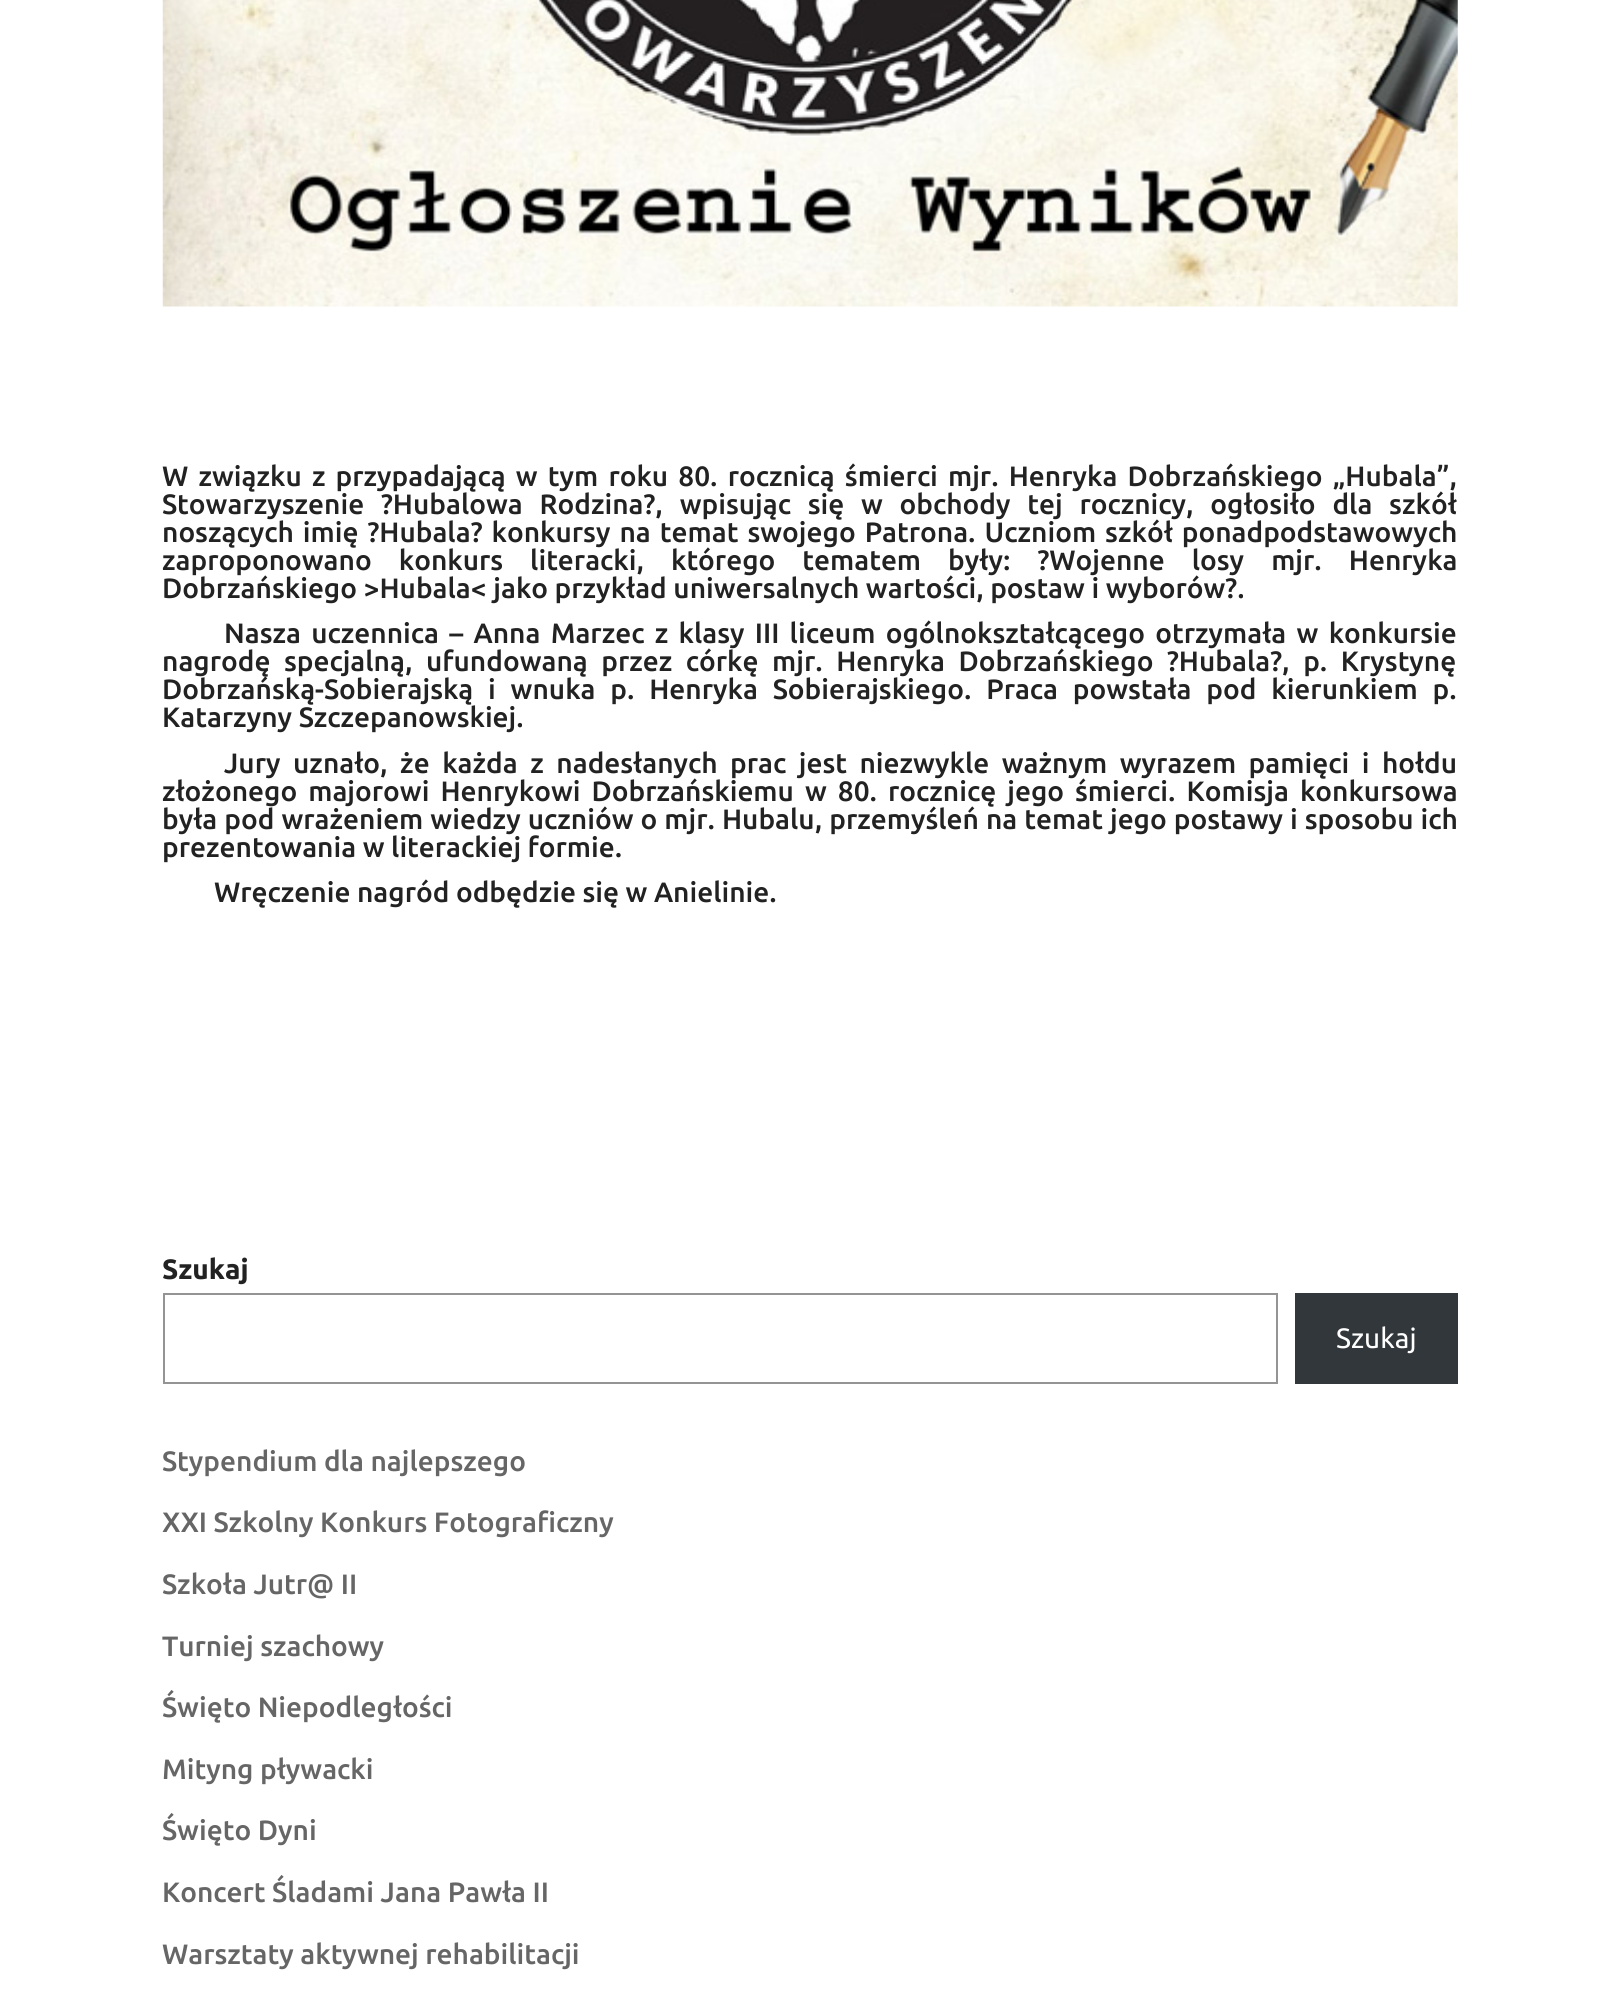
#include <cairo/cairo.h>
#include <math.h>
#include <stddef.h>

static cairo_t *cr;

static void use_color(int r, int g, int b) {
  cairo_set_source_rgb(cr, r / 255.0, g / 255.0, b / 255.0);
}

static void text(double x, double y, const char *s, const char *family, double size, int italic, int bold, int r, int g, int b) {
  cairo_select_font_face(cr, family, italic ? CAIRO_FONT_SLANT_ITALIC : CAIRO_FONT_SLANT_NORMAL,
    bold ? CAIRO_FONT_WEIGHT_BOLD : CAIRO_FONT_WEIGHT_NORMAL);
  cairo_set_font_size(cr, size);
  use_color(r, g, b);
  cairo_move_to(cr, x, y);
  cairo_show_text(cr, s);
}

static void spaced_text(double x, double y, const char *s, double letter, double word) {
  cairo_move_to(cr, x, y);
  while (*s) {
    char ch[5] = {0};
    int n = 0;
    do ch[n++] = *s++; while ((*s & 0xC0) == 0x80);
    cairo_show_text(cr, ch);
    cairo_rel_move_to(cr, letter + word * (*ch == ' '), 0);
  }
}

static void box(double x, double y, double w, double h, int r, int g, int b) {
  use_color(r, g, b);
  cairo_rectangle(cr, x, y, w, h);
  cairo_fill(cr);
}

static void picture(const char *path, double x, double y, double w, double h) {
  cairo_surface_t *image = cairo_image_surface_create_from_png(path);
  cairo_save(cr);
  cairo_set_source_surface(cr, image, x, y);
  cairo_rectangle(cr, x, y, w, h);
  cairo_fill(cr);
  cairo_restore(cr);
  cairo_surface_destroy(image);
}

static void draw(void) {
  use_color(255, 255, 255);
  cairo_paint(cr);
  picture("img_01.png", 162, 0, 1296, 307);
  cairo_rectangle(cr, 164, 1294, 1113, 89);
  use_color(148, 148, 148);
  cairo_stroke(cr);
  box(1295, 1293, 163, 91, 50, 55, 60);
  cairo_select_font_face(cr, "Ubuntu Medium", CAIRO_FONT_SLANT_NORMAL, CAIRO_FONT_WEIGHT_NORMAL);
  cairo_set_font_size(cr, 28);
  use_color(34, 34, 34);
  spaced_text(162, 486, "W związku z przypadającą w tym roku 80. rocznicą śmierci mjr. Henryka Dobrzańskiego „Hubala”,", 0, 3.6);
  spaced_text(162, 514, "Stowarzyszenie ?Hubalowa Rodzina?, wpisując się w obchody tej rocznicy, ogłosiło dla szkół", 0, 10.25);
  spaced_text(162, 542, "noszących imię ?Hubala? konkursy na temat swojego Patrona. Uczniom szkół ponadpodstawowych", 0, 2.5);
  spaced_text(162, 570, "zaproponowano konkurs literacki, którego tematem były: ?Wojenne losy mjr. Henryka", 0, 20.5);
  text(162, 598, "Dobrzańskiego >Hubala< jako przykład uniwersalnych wartości, postaw i wyborów?.", "Ubuntu Medium", 28, 0, 0, 34, 34, 34);
  spaced_text(224, 643, "Nasza uczennica – Anna Marzec z klasy III liceum ogólnokształcącego otrzymała w konkursie", 0, 3.75);
  spaced_text(162, 671, "nagrodę specjalną, ufundowaną przez córkę mjr. Henryka Dobrzańskiego ?Hubala?, p. Krystynę", 0, 7);
  spaced_text(162, 699, "Dobrzańską-Sobierajską i wnuka p. Henryka Sobierajskiego. Praca powstała pod kierunkiem p.", 0, 8.25);
  text(162, 727, "Katarzyny Szczepanowskiej.", "Ubuntu Medium", 28, 0, 0, 34, 34, 34);
  spaced_text(224, 773, "Jury uznało, że każda z nadesłanych prac jest niezwykle ważnym wyrazem pamięci i hołdu", 0, 6);
  spaced_text(162, 801, "złożonego majorowi Henrykowi Dobrzańskiemu w 80. rocznicę jego śmierci. Komisja konkursowa", 0, 4.5);
  spaced_text(162, 829, "była pod wrażeniem wiedzy uczniów o mjr. Hubalu, przemyśleń na temat jego postawy i sposobu ich", 0, 0.5);
  text(162, 857, "prezentowania w literackiej formie.", "Ubuntu Medium", 28, 0, 0, 34, 34, 34);
  text(214, 902, "Wręczenie nagród odbędzie się w Anielinie.", "Ubuntu Medium", 28, 0, 0, 34, 34, 34);
  text(162, 1279, "Szukaj", "Ubuntu", 28, 0, 1, 34, 34, 34);
  text(1336, 1348, "Szukaj", "Ubuntu", 28, 0, 0, 255, 255, 255);
  text(162, 1471, "Stypendium dla najlepszego", "Ubuntu Medium", 28, 0, 0, 102, 102, 102);
  text(162, 1532, "XXI Szkolny Konkurs Fotograficzny", "Ubuntu Medium", 28, 0, 0, 102, 102, 102);
  text(162, 1594, "Szkoła Jutr@ II", "Ubuntu Medium", 28, 0, 0, 102, 102, 102);
  text(162, 1656, "Turniej szachowy", "Ubuntu Medium", 28, 0, 0, 102, 102, 102);
  text(162, 1717, "Święto Niepodległości", "Ubuntu Medium", 28, 0, 0, 102, 102, 102);
  text(162, 1779, "Mityng pływacki", "Ubuntu Medium", 28, 0, 0, 102, 102, 102);
  text(162, 1840, "Święto Dyni", "Ubuntu Medium", 28, 0, 0, 102, 102, 102);
  text(162, 1902, "Koncert Śladami Jana Pawła II", "Ubuntu Medium", 28, 0, 0, 102, 102, 102);
  text(162, 1964, "Warsztaty aktywnej rehabilitacji", "Ubuntu Medium", 28, 0, 0, 102, 102, 102);
}

int main(void) {
  cairo_surface_t *surface = cairo_image_surface_create(CAIRO_FORMAT_RGB24, 1618, 1996);
  cr = cairo_create(surface);
  cairo_font_options_t *options = cairo_font_options_create();
  cairo_font_options_set_hint_metrics(options, CAIRO_HINT_METRICS_OFF);
  cairo_font_options_set_hint_style(options, CAIRO_HINT_STYLE_NONE);
  cairo_set_font_options(cr, options);
  cairo_set_miter_limit(cr, 4);
  draw();
  cairo_surface_write_to_png(surface, "out.png");
  cairo_font_options_destroy(options);
  cairo_destroy(cr);
  cairo_surface_destroy(surface);
  return 0;
}
